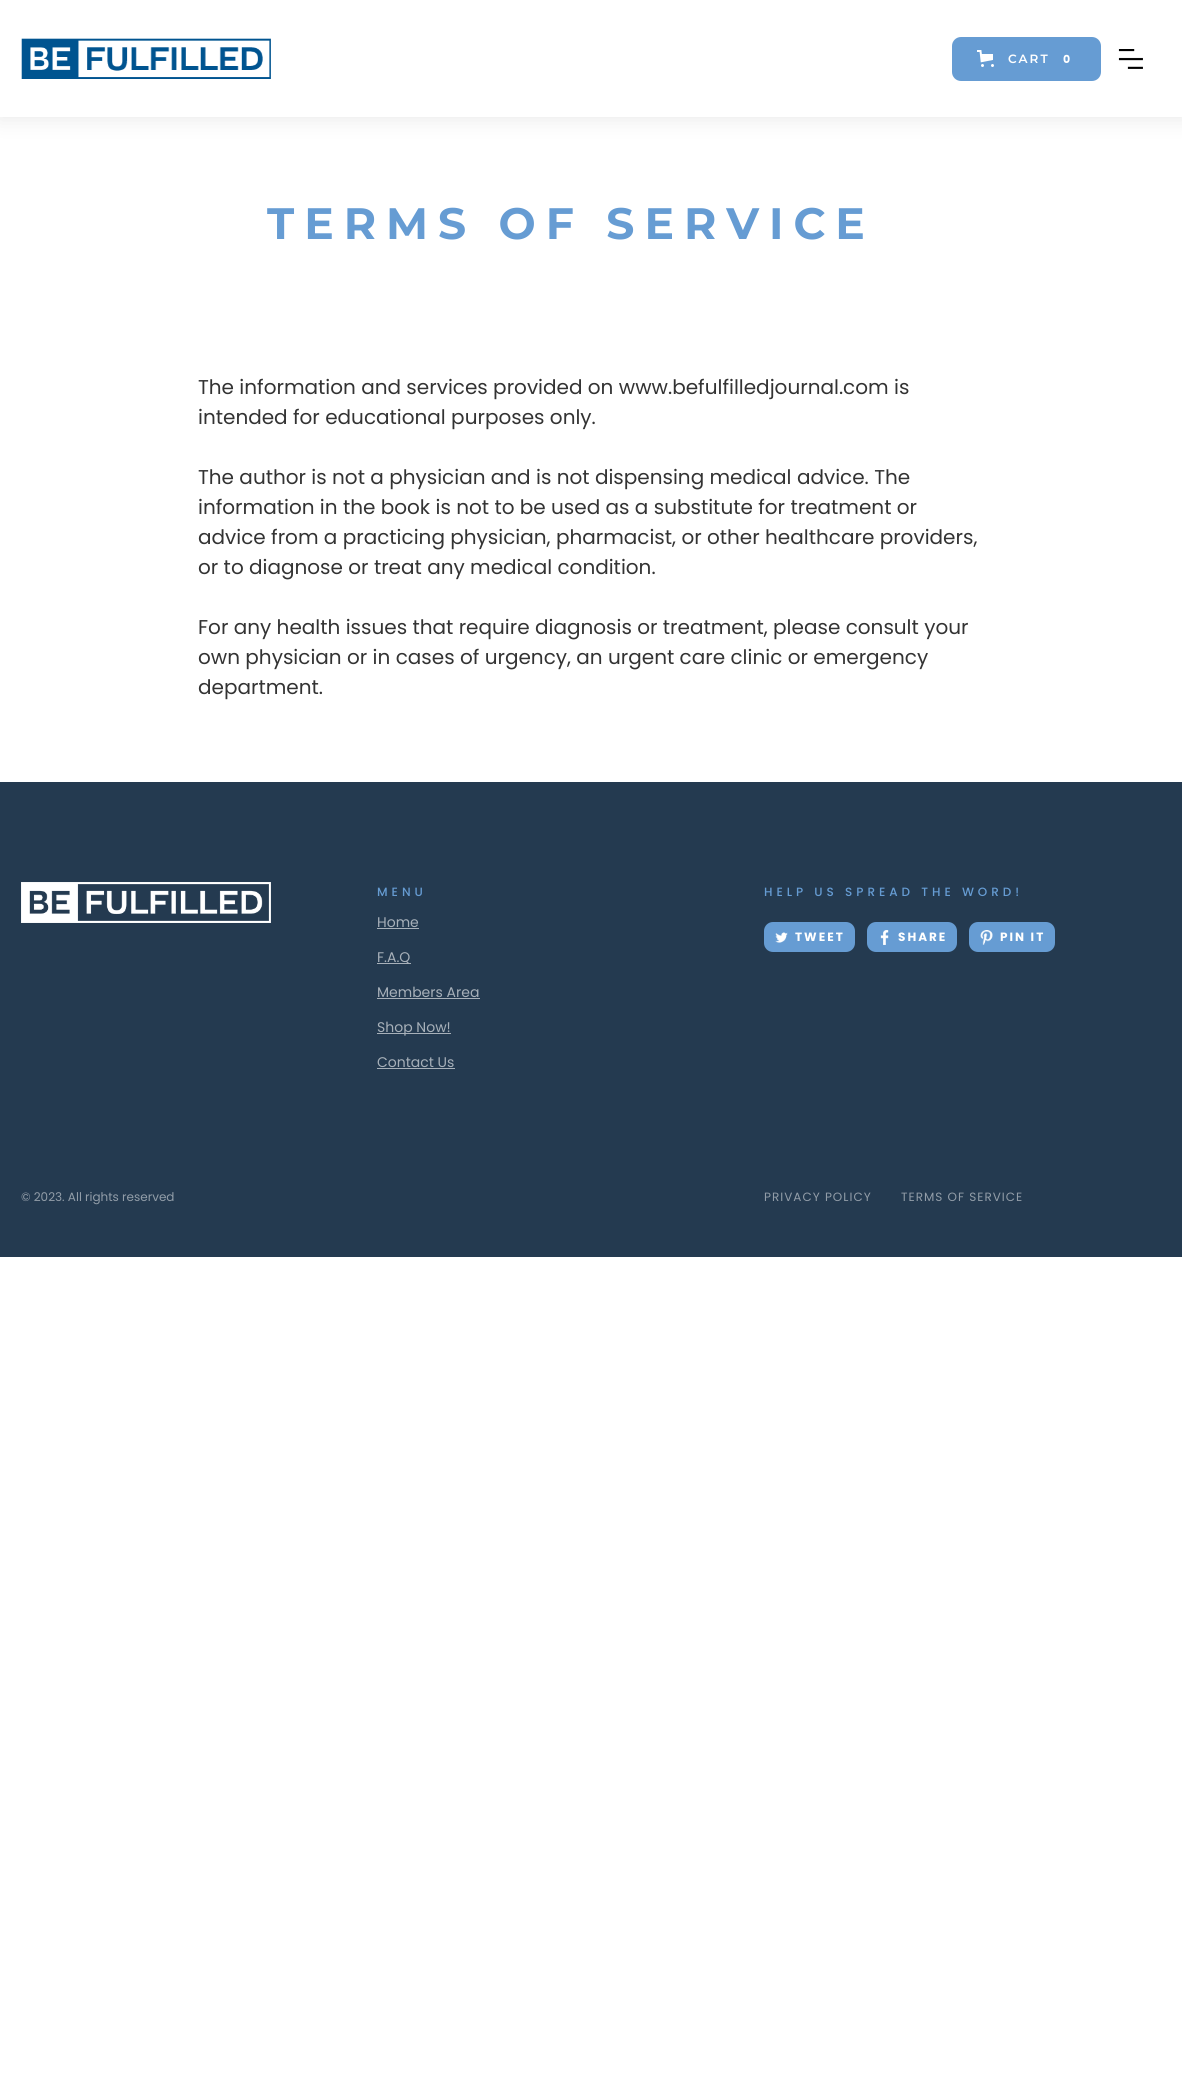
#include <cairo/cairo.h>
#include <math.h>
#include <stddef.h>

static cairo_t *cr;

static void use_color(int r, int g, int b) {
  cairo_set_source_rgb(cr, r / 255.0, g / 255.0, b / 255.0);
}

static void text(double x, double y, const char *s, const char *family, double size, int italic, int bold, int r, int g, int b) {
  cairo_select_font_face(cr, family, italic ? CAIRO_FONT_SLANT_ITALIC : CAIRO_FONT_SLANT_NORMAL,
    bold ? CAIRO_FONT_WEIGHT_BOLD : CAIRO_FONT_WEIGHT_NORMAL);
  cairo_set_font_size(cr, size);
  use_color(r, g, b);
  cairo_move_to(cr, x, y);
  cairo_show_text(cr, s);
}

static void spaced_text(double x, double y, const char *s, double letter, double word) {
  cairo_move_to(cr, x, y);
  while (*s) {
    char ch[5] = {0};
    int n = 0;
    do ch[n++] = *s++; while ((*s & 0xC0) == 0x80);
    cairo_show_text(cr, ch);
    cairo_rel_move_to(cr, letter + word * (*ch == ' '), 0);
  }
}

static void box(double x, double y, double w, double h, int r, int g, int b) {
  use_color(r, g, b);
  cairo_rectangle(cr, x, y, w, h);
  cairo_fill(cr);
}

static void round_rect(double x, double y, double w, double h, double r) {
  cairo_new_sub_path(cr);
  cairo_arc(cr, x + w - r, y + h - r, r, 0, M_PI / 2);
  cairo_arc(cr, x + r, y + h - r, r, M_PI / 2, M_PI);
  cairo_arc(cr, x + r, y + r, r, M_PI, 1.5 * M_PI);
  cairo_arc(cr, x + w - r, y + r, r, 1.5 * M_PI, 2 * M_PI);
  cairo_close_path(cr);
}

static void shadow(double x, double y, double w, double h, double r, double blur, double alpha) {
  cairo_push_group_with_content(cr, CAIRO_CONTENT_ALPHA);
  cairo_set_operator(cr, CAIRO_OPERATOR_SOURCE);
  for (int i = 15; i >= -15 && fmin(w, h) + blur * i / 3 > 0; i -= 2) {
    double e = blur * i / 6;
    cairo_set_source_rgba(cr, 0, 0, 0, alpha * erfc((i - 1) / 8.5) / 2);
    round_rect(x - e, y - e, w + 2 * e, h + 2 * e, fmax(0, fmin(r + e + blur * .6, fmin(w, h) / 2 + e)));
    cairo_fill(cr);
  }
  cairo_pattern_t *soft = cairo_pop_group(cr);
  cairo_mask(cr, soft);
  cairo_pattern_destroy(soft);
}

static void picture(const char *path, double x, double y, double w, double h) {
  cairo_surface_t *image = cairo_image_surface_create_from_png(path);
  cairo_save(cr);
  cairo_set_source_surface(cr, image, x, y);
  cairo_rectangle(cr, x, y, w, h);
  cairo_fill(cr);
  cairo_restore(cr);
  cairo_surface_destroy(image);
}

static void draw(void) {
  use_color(255, 255, 255);
  cairo_paint(cr);
  cairo_save(cr);
  cairo_rectangle(cr, 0, 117, 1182, 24);
  cairo_clip(cr);
  use_color(235, 235, 235);
  shadow(-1, -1, 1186, 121, 0, 10, 1);
  cairo_restore(cr);
  picture("img_01.png", 21, 38, 250, 41);
  use_color(102, 156, 211);
  round_rect(952, 37, 149, 44, 9);
  cairo_fill(cr);
  picture("img_02.png", 977, 50, 17, 17);
  picture("img_03.png", 1118, 49, 25, 20);
  box(0, 782, 1182, 475, 36, 58, 80);
  picture("img_04.png", 21, 882, 250, 41);
  box(377, 928, 42, 1, 167, 176, 185);
  box(377, 963, 34, 1, 167, 176, 185);
  box(377, 998, 103, 1, 167, 176, 185);
  box(377, 1033, 74, 1, 167, 176, 185);
  box(377, 1068, 78, 1, 167, 176, 185);
  use_color(102, 156, 211);
  round_rect(764, 922, 91, 30, 9);
  cairo_fill(cr);
  picture("img_05.png", 775, 932, 13, 11);
  round_rect(867, 922, 90, 30, 9);
  cairo_fill(cr);
  picture("img_06.png", 880, 930, 9, 15);
  round_rect(969, 922, 86, 30, 9);
  cairo_fill(cr);
  picture("img_07.png", 980, 930, 13, 15);
  cairo_select_font_face(cr, "Montserrat SemiBold", CAIRO_FONT_SLANT_NORMAL, CAIRO_FONT_WEIGHT_NORMAL);
  cairo_set_font_size(cr, 12);
  use_color(255, 255, 255);
  spaced_text(1008, 63, "CART", 2, 0);
  text(1063, 63, "0", "Poppins", 11, 0, 1, 255, 255, 255);
  cairo_select_font_face(cr, "Montserrat", CAIRO_FONT_SLANT_NORMAL, CAIRO_FONT_WEIGHT_BOLD);
  cairo_set_font_size(cr, 44);
  use_color(102, 156, 211);
  spaced_text(267, 239, "TERMS OF SERVICE", 10, 0);
  text(198, 394, "The information and services provided on www.befulfilledjournal.com is", "Poppins", 20, 0, 0, 51, 51, 51);
  text(198, 424, "intended for educational purposes only.", "Poppins", 20, 0, 0, 51, 51, 51);
  text(198, 484, "The author is not a physician and is not dispensing medical advice. The", "Poppins", 20, 0, 0, 51, 51, 51);
  text(198, 514, "information in the book is not to be used as a substitute for treatment or", "Poppins", 20, 0, 0, 51, 51, 51);
  text(198, 544, "advice from a practicing physician, pharmacist, or other healthcare providers,", "Poppins", 20, 0, 0, 51, 51, 51);
  text(198, 574, "or to diagnose or treat any medical condition.", "Poppins", 20, 0, 0, 51, 51, 51);
  text(198, 634, "For any health issues that require diagnosis or treatment, please consult your", "Poppins", 20, 0, 0, 51, 51, 51);
  text(198, 664, "own physician or in cases of urgency, an urgent care clinic or emergency", "Poppins", 20, 0, 0, 51, 51, 51);
  text(198, 694, "department.", "Poppins", 20, 0, 0, 51, 51, 51);
  cairo_select_font_face(cr, "Poppins Medium", CAIRO_FONT_SLANT_NORMAL, CAIRO_FONT_WEIGHT_NORMAL);
  cairo_set_font_size(cr, 12);
  use_color(102, 156, 211);
  spaced_text(377, 896, "MENU", 4, 0);
  text(377, 927, "Home", "Poppins", 14, 0, 0, 167, 176, 185);
  text(377, 962, "F.A.Q", "Poppins", 14, 0, 0, 167, 176, 185);
  text(377, 997, "Members Area", "Poppins", 14, 0, 0, 167, 176, 185);
  text(377, 1032, "Shop Now!", "Poppins", 14, 0, 0, 167, 176, 185);
  text(377, 1067, "Contact Us", "Poppins", 14, 0, 0, 167, 176, 185);
  cairo_select_font_face(cr, "Poppins Medium", CAIRO_FONT_SLANT_NORMAL, CAIRO_FONT_WEIGHT_NORMAL);
  cairo_set_font_size(cr, 12);
  use_color(102, 156, 211);
  spaced_text(764, 896, "HELP US SPREAD THE WORD!", 4, 0);
  cairo_select_font_face(cr, "Poppins", CAIRO_FONT_SLANT_NORMAL, CAIRO_FONT_WEIGHT_BOLD);
  use_color(255, 255, 255);
  spaced_text(795, 941, "TWEET", 2, 0);
  spaced_text(898, 941, "SHARE", 2, 0);
  spaced_text(1000, 941, "PIN IT", 2, 0);
  text(21, 1201, "© 2023. All rights reserved", "Poppins", 12, 0, 0, 146, 157, 168);
  spaced_text(764, 1201, "PRIVACY POLICY", 1, 0);
  spaced_text(901, 1201, "TERMS OF SERVICE", 1, 0);
}

int main(void) {
  cairo_surface_t *surface = cairo_image_surface_create(CAIRO_FORMAT_RGB24, 1182, 2100);
  cr = cairo_create(surface);
  cairo_font_options_t *options = cairo_font_options_create();
  cairo_font_options_set_hint_metrics(options, CAIRO_HINT_METRICS_OFF);
  cairo_font_options_set_hint_style(options, CAIRO_HINT_STYLE_NONE);
  cairo_set_font_options(cr, options);
  cairo_set_miter_limit(cr, 4);
  draw();
  cairo_surface_write_to_png(surface, "out.png");
  cairo_font_options_destroy(options);
  cairo_destroy(cr);
  cairo_surface_destroy(surface);
  return 0;
}
